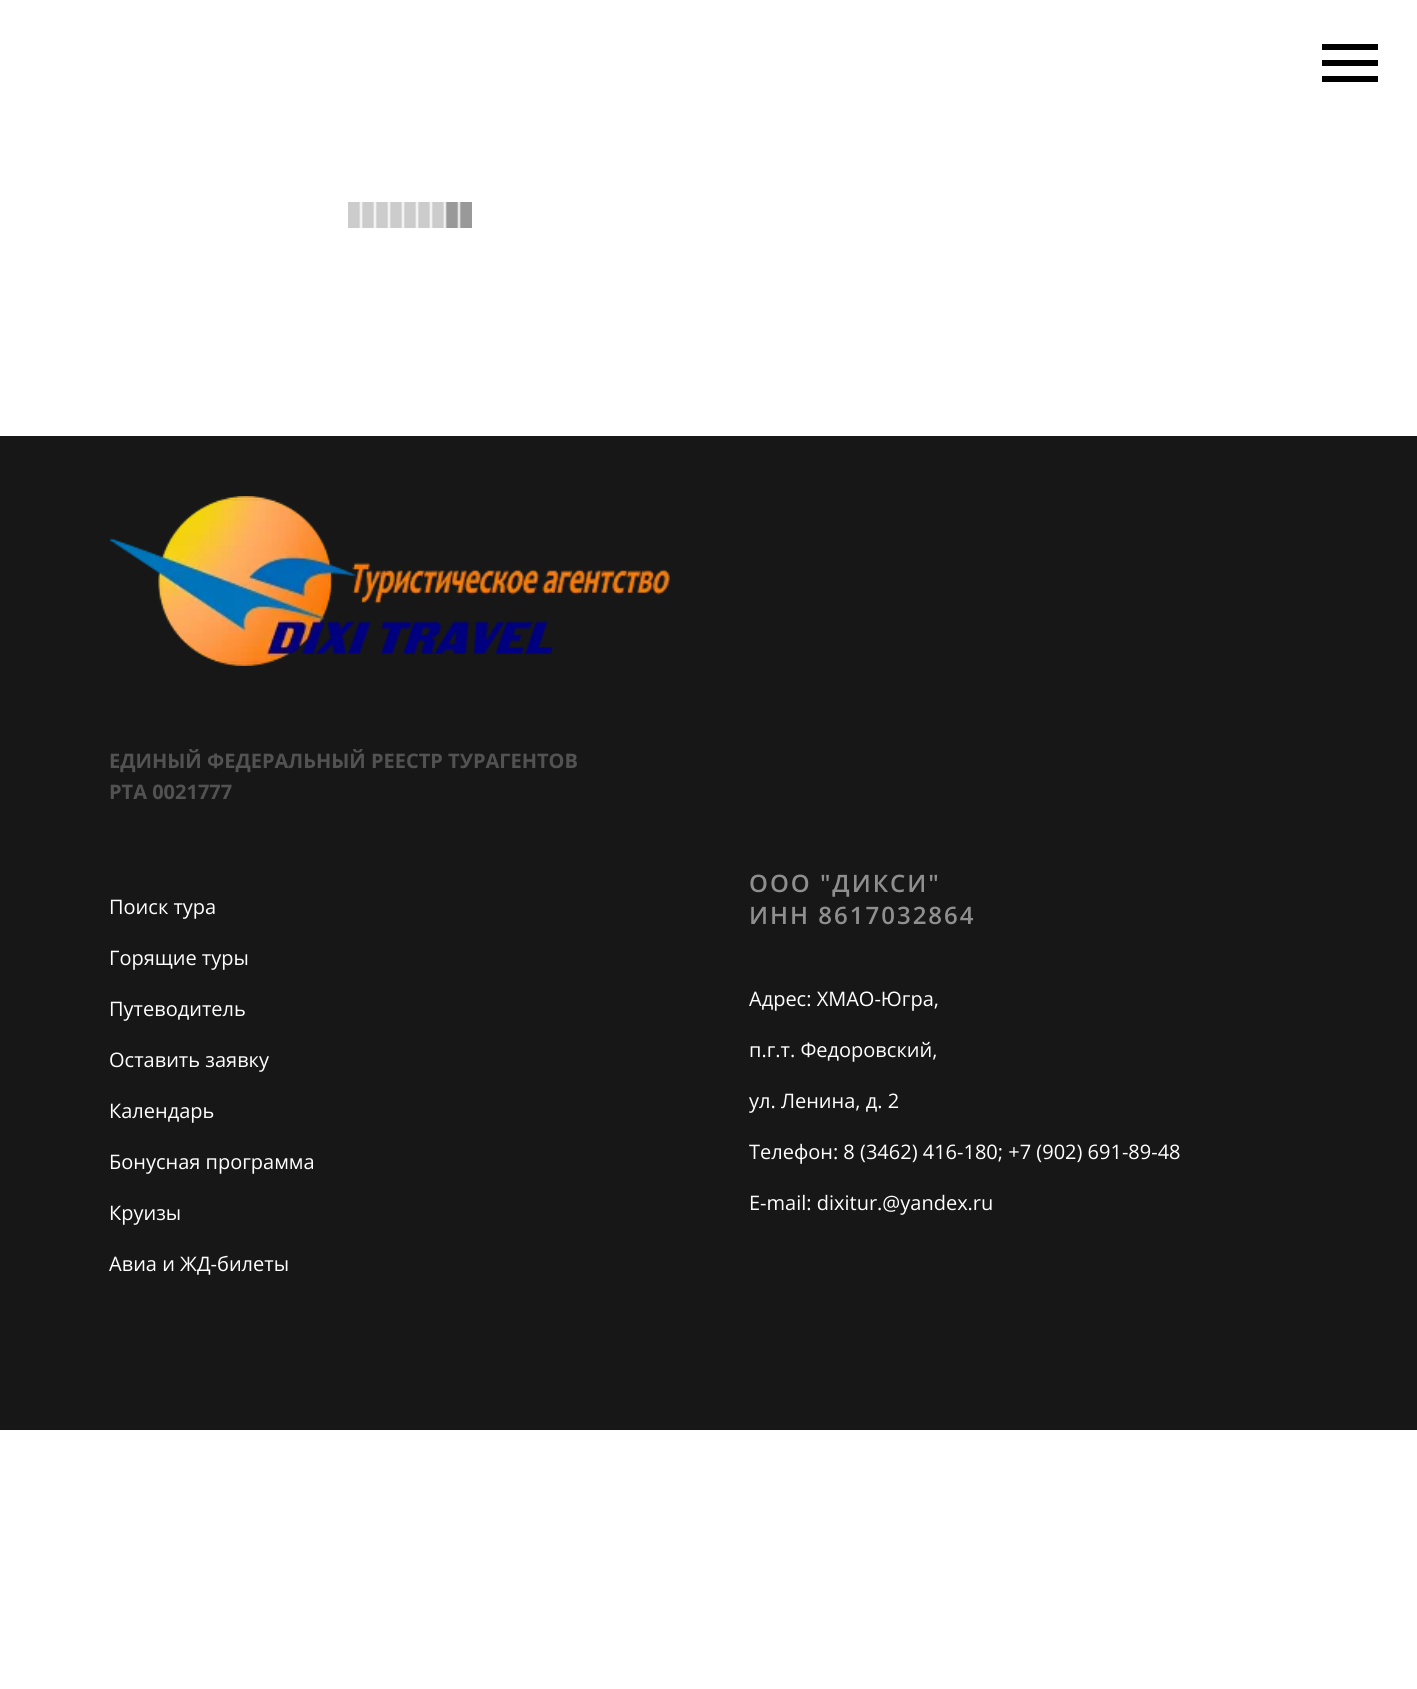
#include <cairo/cairo.h>
#include <math.h>
#include <stddef.h>

static cairo_t *cr;

static void use_color(int r, int g, int b) {
  cairo_set_source_rgb(cr, r / 255.0, g / 255.0, b / 255.0);
}

static void text(double x, double y, const char *s, const char *family, double size, int italic, int bold, int r, int g, int b) {
  cairo_select_font_face(cr, family, italic ? CAIRO_FONT_SLANT_ITALIC : CAIRO_FONT_SLANT_NORMAL,
    bold ? CAIRO_FONT_WEIGHT_BOLD : CAIRO_FONT_WEIGHT_NORMAL);
  cairo_set_font_size(cr, size);
  use_color(r, g, b);
  cairo_move_to(cr, x, y);
  cairo_show_text(cr, s);
}

static void spaced_text(double x, double y, const char *s, double letter, double word) {
  cairo_move_to(cr, x, y);
  while (*s) {
    char ch[5] = {0};
    int n = 0;
    do ch[n++] = *s++; while ((*s & 0xC0) == 0x80);
    cairo_show_text(cr, ch);
    cairo_rel_move_to(cr, letter + word * (*ch == ' '), 0);
  }
}

static void box(double x, double y, double w, double h, int r, int g, int b) {
  use_color(r, g, b);
  cairo_rectangle(cr, x, y, w, h);
  cairo_fill(cr);
}

static void picture(const char *path, double x, double y, double w, double h) {
  cairo_surface_t *image = cairo_image_surface_create_from_png(path);
  cairo_save(cr);
  cairo_set_source_surface(cr, image, x, y);
  cairo_rectangle(cr, x, y, w, h);
  cairo_fill(cr);
  cairo_restore(cr);
  cairo_surface_destroy(image);
}

static void draw(void) {
  use_color(255, 255, 255);
  cairo_paint(cr);
  box(1322, 44, 56, 6, 0, 0, 0);
  box(1322, 60, 56, 6, 0, 0, 0);
  box(1322, 76, 56, 6, 0, 0, 0);
  picture("img_01.png", 348, 202, 124, 26);
  box(0, 436, 1417, 994, 23, 23, 23);
  picture("img_02.png", 110, 496, 560, 170);
  text(109, 768, "ЕДИНЫЙ ФЕДЕРАЛЬНЫЙ РЕЕСТР ТУРАГЕНТОВ", "Open Sans", 20, 0, 1, 82, 82, 82);
  text(109, 799, "РТА 0021777", "Open Sans", 20, 0, 1, 82, 82, 82);
  text(109, 914, "Поиск тура", "Open Sans", 20, 0, 0, 255, 255, 255);
  text(109, 965, "Горящие туры", "Open Sans", 20, 0, 0, 255, 255, 255);
  text(109, 1016, "Путеводитель", "Open Sans", 20, 0, 0, 255, 255, 255);
  text(109, 1067, "Оставить заявку", "Open Sans", 20, 0, 0, 255, 255, 255);
  text(109, 1118, "Календарь", "Open Sans", 20, 0, 0, 255, 255, 255);
  text(109, 1169, "Бонусная программа", "Open Sans", 20, 0, 0, 255, 255, 255);
  text(109, 1220, "Круизы", "Open Sans", 20, 0, 0, 255, 255, 255);
  text(109, 1271, "Авиа и ЖД-билеты", "Open Sans", 20, 0, 0, 255, 255, 255);
  cairo_select_font_face(cr, "Open Sans SemiBold", CAIRO_FONT_SLANT_NORMAL, CAIRO_FONT_WEIGHT_NORMAL);
  cairo_set_font_size(cr, 24);
  use_color(143, 143, 143);
  spaced_text(749, 892, "ООО \"ДИКСИ\"", 2, 0);
  spaced_text(749, 924, "ИНН 8617032864", 2, 0);
  text(749, 1006, "Адрес: ХМАО-Югра,", "Open Sans", 20, 0, 0, 255, 255, 255);
  text(749, 1057, "п.г.т. Федоровский,", "Open Sans", 20, 0, 0, 255, 255, 255);
  text(749, 1108, "ул. Ленина, д. 2", "Open Sans", 20, 0, 0, 255, 255, 255);
  text(749, 1159, "Телефон: 8 (3462) 416-180; +7 (902) 691-89-48", "Open Sans", 20, 0, 0, 255, 255, 255);
  text(749, 1210, "E-mail: dixitur.@yandex.ru", "Open Sans", 20, 0, 0, 255, 255, 255);
}

int main(void) {
  cairo_surface_t *surface = cairo_image_surface_create(CAIRO_FORMAT_RGB24, 1417, 1689);
  cr = cairo_create(surface);
  cairo_font_options_t *options = cairo_font_options_create();
  cairo_font_options_set_hint_metrics(options, CAIRO_HINT_METRICS_OFF);
  cairo_font_options_set_hint_style(options, CAIRO_HINT_STYLE_NONE);
  cairo_set_font_options(cr, options);
  cairo_set_miter_limit(cr, 4);
  draw();
  cairo_surface_write_to_png(surface, "out.png");
  cairo_font_options_destroy(options);
  cairo_destroy(cr);
  cairo_surface_destroy(surface);
  return 0;
}
